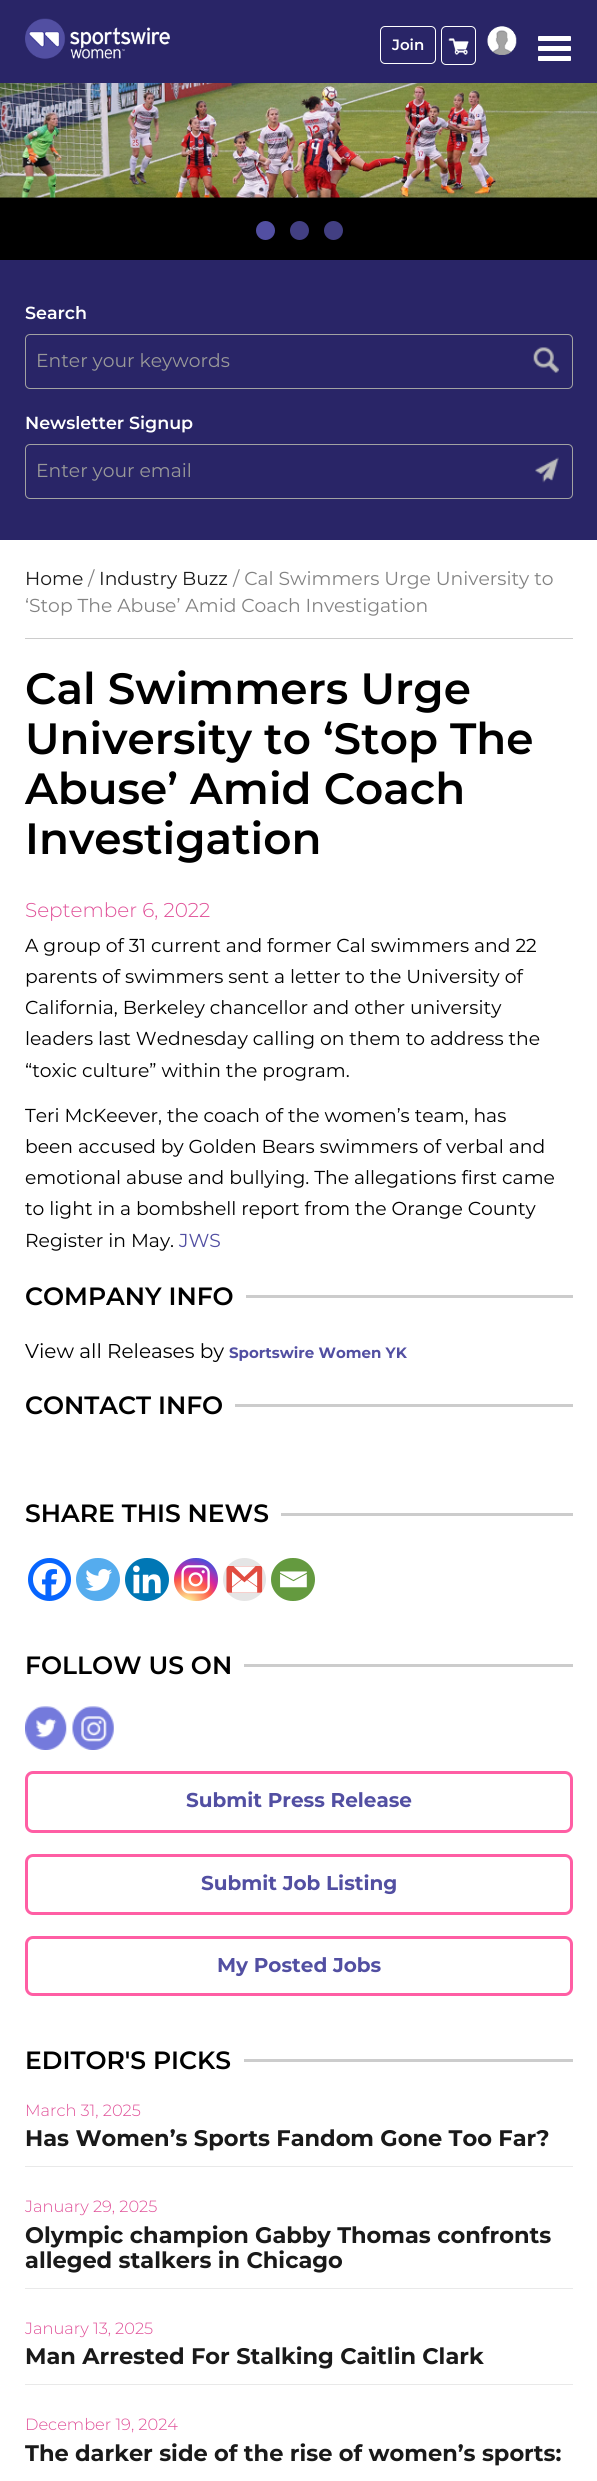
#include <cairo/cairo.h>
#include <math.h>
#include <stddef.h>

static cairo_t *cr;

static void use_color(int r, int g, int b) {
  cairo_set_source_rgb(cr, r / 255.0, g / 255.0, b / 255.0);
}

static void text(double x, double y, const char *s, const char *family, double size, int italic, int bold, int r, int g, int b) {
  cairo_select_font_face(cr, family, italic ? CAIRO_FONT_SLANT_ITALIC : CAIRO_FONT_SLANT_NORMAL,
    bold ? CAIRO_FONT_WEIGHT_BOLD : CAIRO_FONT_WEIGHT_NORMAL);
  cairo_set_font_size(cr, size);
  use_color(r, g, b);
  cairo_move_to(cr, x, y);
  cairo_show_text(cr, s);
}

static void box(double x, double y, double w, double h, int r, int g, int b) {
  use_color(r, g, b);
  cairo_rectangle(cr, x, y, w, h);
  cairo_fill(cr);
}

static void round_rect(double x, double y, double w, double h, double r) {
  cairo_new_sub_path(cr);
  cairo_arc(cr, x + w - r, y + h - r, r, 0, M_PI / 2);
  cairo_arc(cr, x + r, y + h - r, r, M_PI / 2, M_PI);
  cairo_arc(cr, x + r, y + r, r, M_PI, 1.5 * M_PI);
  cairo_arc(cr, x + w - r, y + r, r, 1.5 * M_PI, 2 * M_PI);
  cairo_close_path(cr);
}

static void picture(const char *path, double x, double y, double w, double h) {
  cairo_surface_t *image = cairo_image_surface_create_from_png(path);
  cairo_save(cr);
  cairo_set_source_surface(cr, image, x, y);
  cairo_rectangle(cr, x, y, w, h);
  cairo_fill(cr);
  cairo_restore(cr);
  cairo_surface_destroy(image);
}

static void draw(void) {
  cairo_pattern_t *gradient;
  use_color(255, 255, 255);
  cairo_paint(cr);
  box(0, 0, 597, 83, 41, 37, 103);
  picture("img_01.png", 25, 18, 145, 41);
  round_rect(380.5, 26.5, 55, 37, 4.5);
  use_color(255, 255, 255);
  cairo_set_line_width(cr, 1);
  cairo_stroke(cr);
  round_rect(441.5, 26.5, 34, 38, 4.5);
  cairo_stroke(cr);
  picture("img_02.png", 448, 38, 21, 17);
  picture("img_03.png", 487, 26, 30, 29);
  round_rect(538, 36, 33, 5, 1);
  cairo_fill(cr);
  round_rect(538, 46, 33, 5, 1);
  cairo_fill(cr);
  round_rect(538, 56, 33, 5, 1);
  cairo_fill(cr);
  box(0, 83, 597, 177, 0, 0, 0);
  picture("img_04.png", 0, 83, 597, 115);
  use_color(82, 79, 162);
  cairo_arc(cr, 265.5, 230.5, 9.5, 0, 2 * M_PI);
  cairo_fill(cr);
  use_color(66, 63, 130);
  cairo_arc(cr, 299.5, 230.5, 9.5, 0, 2 * M_PI);
  cairo_fill(cr);
  cairo_arc(cr, 333.5, 230.5, 9.5, 0, 2 * M_PI);
  cairo_fill(cr);
  box(0, 260, 597, 280, 41, 37, 103);
  round_rect(25.5, 334.5, 547, 54, 4.5);
  use_color(162, 162, 162);
  cairo_stroke(cr);
  picture("img_05.png", 533, 347, 26, 26);
  round_rect(25.5, 444.5, 547, 54, 4.5);
  cairo_stroke(cr);
  picture("img_06.png", 535, 457, 24, 26);
  box(25, 638, 548, 1, 204, 204, 204);
  box(246, 1295, 327, 3, 204, 204, 204);
  box(235, 1404, 338, 3, 204, 204, 204);
  box(281, 1513, 292, 3, 204, 204, 204);
  use_color(7, 101, 254);
  cairo_arc(cr, 49.5, 1579.5, 21.5, 0, 2 * M_PI);
  cairo_fill(cr);
  picture("img_07.png", 33, 1563, 33, 33);
  use_color(85, 172, 238);
  round_rect(76, 1558, 44, 43, 21.5);
  cairo_fill(cr);
  picture("img_08.png", 85, 1569, 27, 22);
  use_color(0, 119, 181);
  round_rect(125, 1558, 44, 43, 21.5);
  cairo_fill(cr);
  picture("img_09.png", 133, 1565, 28, 29);
  gradient = cairo_pattern_create_radial(187, 1604, 0, 187, 1604, 56);
  cairo_pattern_add_color_stop_rgba(gradient, 0, 0.992, 0.957, 0.592, 1);
  cairo_pattern_add_color_stop_rgba(gradient, 0.05, 0.992, 0.957, 0.592, 1);
  cairo_pattern_add_color_stop_rgba(gradient, 0.45, 0.992, 0.349, 0.286, 1);
  cairo_pattern_add_color_stop_rgba(gradient, 0.6, 0.839, 0.141, 0.624, 1);
  cairo_pattern_add_color_stop_rgba(gradient, 0.9, 0.157, 0.353, 0.922, 1);
  cairo_set_source(cr, gradient);
  cairo_pattern_destroy(gradient);
  round_rect(174, 1558, 44, 43, 21.5);
  cairo_fill(cr);
  picture("img_10.png", 181, 1565, 29, 29);
  use_color(229, 229, 229);
  cairo_arc(cr, 244.5, 1579.5, 21.5, 0, 2 * M_PI);
  cairo_fill(cr);
  picture("img_11.png", 226, 1566, 37, 27);
  use_color(100, 154, 63);
  round_rect(271, 1558, 44, 43, 21.5);
  cairo_fill(cr);
  picture("img_12.png", 280, 1571, 27, 17);
  box(244, 1664, 329, 3, 204, 204, 204);
  picture("img_13.png", 25, 1706, 42, 44);
  picture("img_14.png", 72, 1706, 42, 44);
  round_rect(26.5, 1772.5, 545, 59, 6.5);
  use_color(255, 94, 164);
  cairo_set_line_width(cr, 3);
  cairo_stroke(cr);
  round_rect(26.5, 1855.5, 545, 58, 6.5);
  cairo_stroke(cr);
  round_rect(26.5, 1937.5, 545, 57, 6.5);
  cairo_stroke(cr);
  box(244, 2059, 329, 3, 204, 204, 204);
  box(25, 2166, 548, 1, 233, 233, 233);
  box(25, 2288, 548, 1, 233, 233, 233);
  box(25, 2384, 548, 1, 233, 233, 233);
  text(392, 50, "Join", "Montserrat SemiBold", 15, 0, 0, 255, 255, 255);
  text(25, 319, "Search", "Montserrat SemiBold", 17.5, 0, 0, 255, 255, 255);
  text(36, 367, "Enter your keywords", "Montserrat", 18.75, 0, 0, 153, 153, 153);
  text(25, 429, "Newsletter Signup", "Montserrat SemiBold", 17.5, 0, 0, 255, 255, 255);
  text(36, 477, "Enter your email", "Montserrat", 18.75, 0, 0, 153, 153, 153);
  text(25, 585, "Home", "Montserrat", 18.75, 0, 0, 26, 26, 26);
  text(88, 585, "/", "Montserrat", 18.75, 0, 0, 130, 130, 130);
  text(99, 585, "Industry Buzz", "Montserrat", 18.75, 0, 0, 26, 26, 26);
  text(233, 585, "/ Cal Swimmers Urge University to", "Montserrat", 18.75, 0, 0, 130, 130, 130);
  text(25, 612, "‘Stop The Abuse’ Amid Coach Investigation", "Montserrat", 18.75, 0, 0, 130, 130, 130);
  text(25, 704, "Cal Swimmers Urge", "Montserrat SemiBold", 43.75, 0, 0, 0, 0, 0);
  text(25, 754, "University to ‘Stop The", "Montserrat SemiBold", 43.75, 0, 0, 0, 0, 0);
  text(25, 804, "Abuse’ Amid Coach", "Montserrat SemiBold", 43.75, 0, 0, 0, 0, 0);
  text(25, 854, "Investigation", "Montserrat SemiBold", 43.75, 0, 0, 0, 0, 0);
  text(25, 917, "September 6, 2022", "Montserrat Light", 20, 0, 0, 224, 80, 152);
  text(25, 952, "A group of 31 current and former Cal swimmers and 22", "Montserrat", 18.75, 0, 0, 0, 0, 0);
  text(25, 983, "parents of swimmers sent a letter to the University of", "Montserrat", 18.75, 0, 0, 0, 0, 0);
  text(25, 1014, "California, Berkeley chancellor and other university", "Montserrat", 18.75, 0, 0, 0, 0, 0);
  text(25, 1045, "leaders last Wednesday calling on them to address the", "Montserrat", 18.75, 0, 0, 0, 0, 0);
  text(25, 1077, "“toxic culture” within the program.", "Montserrat", 18.75, 0, 0, 0, 0, 0);
  text(25, 1122, "Teri McKeever, the coach of the women’s team, has", "Montserrat", 18.75, 0, 0, 0, 0, 0);
  text(25, 1153, "been accused by Golden Bears swimmers of verbal and", "Montserrat", 18.75, 0, 0, 0, 0, 0);
  text(25, 1184, "emotional abuse and bullying. The allegations first came", "Montserrat", 18.75, 0, 0, 0, 0, 0);
  text(25, 1215, "to light in a bombshell report from the Orange County", "Montserrat", 18.75, 0, 0, 0, 0, 0);
  text(25, 1247, "Register in May.", "Montserrat", 18.75, 0, 0, 0, 0, 0);
  text(179, 1247, "JWS", "Montserrat", 18.75, 0, 0, 82, 79, 162);
  text(25, 1305, "COMPANY INFO", "Montserrat SemiBold", 25, 0, 0, 0, 0, 0);
  text(25, 1358, "View all Releases by", "Montserrat", 20, 0, 0, 0, 0, 0);
  text(229, 1358, "Sportswire Women YK", "Montserrat", 15, 0, 1, 82, 79, 162);
  text(25, 1414, "CONTACT INFO", "Montserrat SemiBold", 25, 0, 0, 0, 0, 0);
  text(25, 1522, "SHARE THIS NEWS", "Montserrat SemiBold", 25, 0, 0, 0, 0, 0);
  text(25, 1674, "FOLLOW US ON", "Montserrat SemiBold", 25, 0, 0, 0, 0, 0);
  text(186, 1807, "Submit Press Release", "Montserrat", 20, 0, 1, 82, 79, 162);
  text(201, 1890, "Submit Job Listing", "Montserrat", 20, 0, 1, 82, 79, 162);
  text(217, 1972, "My Posted Jobs", "Montserrat", 20, 0, 1, 82, 79, 162);
  text(25, 2069, "EDITOR'S PICKS", "Montserrat SemiBold", 25, 0, 0, 0, 0, 0);
  text(25, 2116, "March 31, 2025", "Montserrat Light", 16.25, 0, 0, 224, 80, 152);
  text(25, 2146, "Has Women’s Sports Fandom Gone Too Far?", "Montserrat", 22.5, 0, 1, 26, 26, 26);
  text(25, 2212, "January 29, 2025", "Montserrat Light", 16.25, 0, 0, 224, 80, 152);
  text(25, 2243, "Olympic champion Gabby Thomas confronts", "Montserrat", 22.5, 0, 1, 26, 26, 26);
  text(25, 2268, "alleged stalkers in Chicago", "Montserrat", 22.5, 0, 1, 26, 26, 26);
  text(25, 2334, "January 13, 2025", "Montserrat Light", 16.25, 0, 0, 224, 80, 152);
  text(25, 2364, "Man Arrested For Stalking Caitlin Clark", "Montserrat", 22.5, 0, 1, 26, 26, 26);
  text(25, 2430, "December 19, 2024", "Montserrat Light", 16.25, 0, 0, 224, 80, 152);
  cairo_save(cr);
  cairo_rectangle(cr, 25, 2408, 548, 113);
  cairo_clip(cr);
  text(25, 2461, "The darker side of the rise of women’s sports:", "Montserrat", 22.5, 0, 1, 26, 26, 26);
  cairo_restore(cr);
}

int main(void) {
  cairo_surface_t *surface = cairo_image_surface_create(CAIRO_FORMAT_RGB24, 597, 2481);
  cr = cairo_create(surface);
  cairo_font_options_t *options = cairo_font_options_create();
  cairo_font_options_set_hint_metrics(options, CAIRO_HINT_METRICS_OFF);
  cairo_font_options_set_hint_style(options, CAIRO_HINT_STYLE_NONE);
  cairo_set_font_options(cr, options);
  cairo_set_miter_limit(cr, 4);
  draw();
  cairo_surface_write_to_png(surface, "out.png");
  cairo_font_options_destroy(options);
  cairo_destroy(cr);
  cairo_surface_destroy(surface);
  return 0;
}
